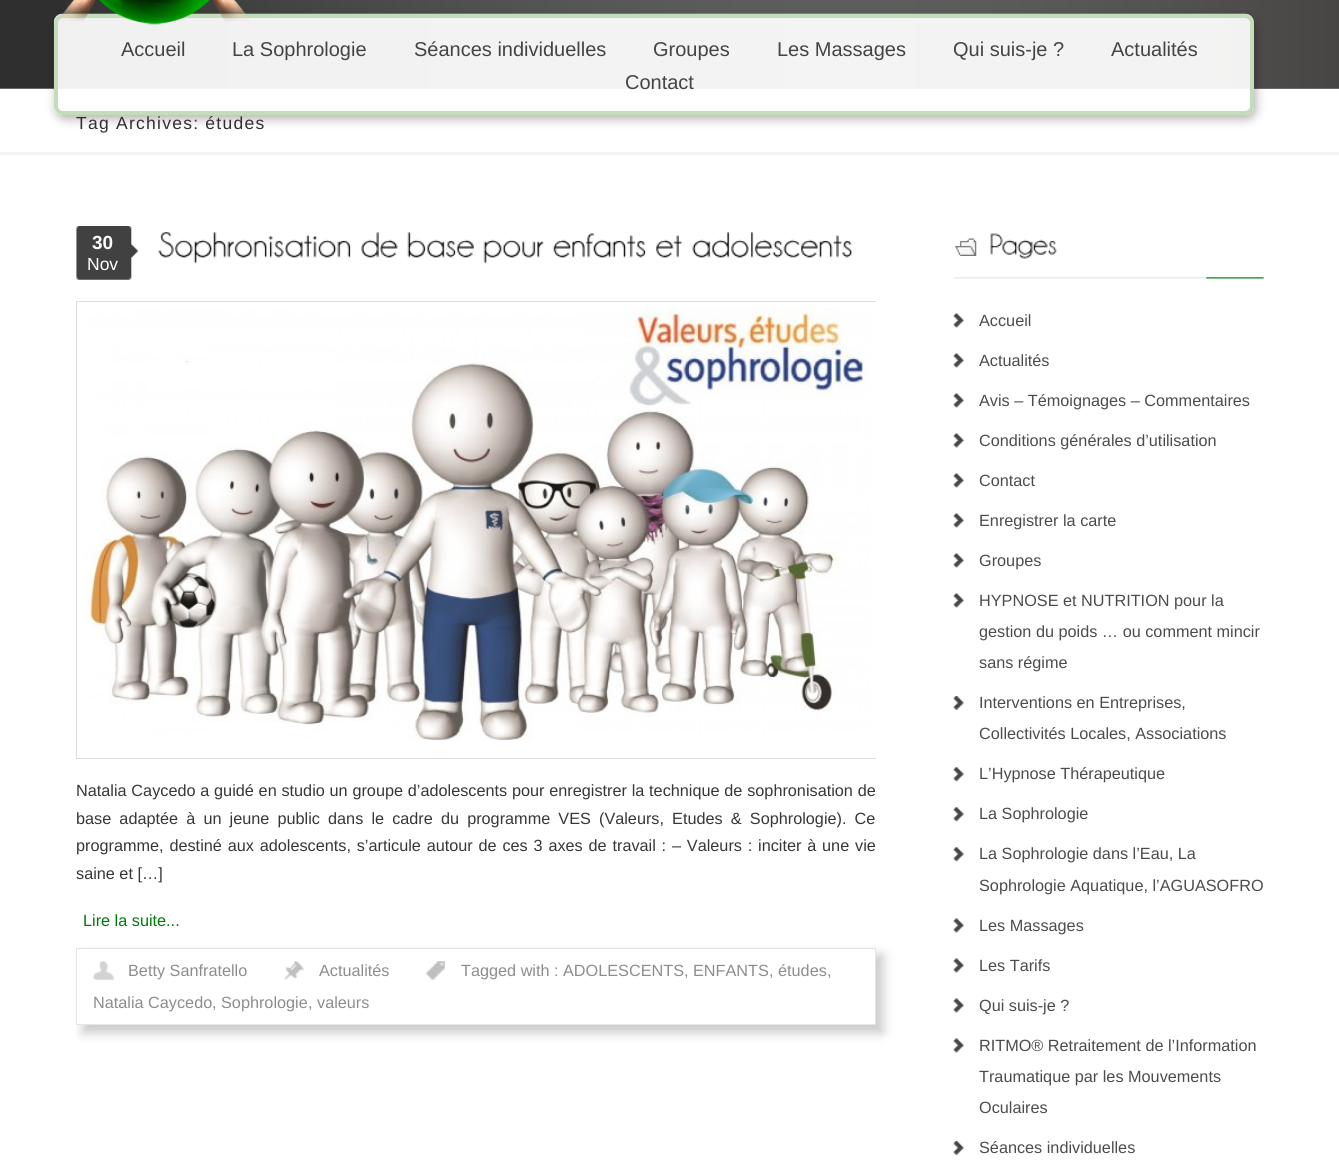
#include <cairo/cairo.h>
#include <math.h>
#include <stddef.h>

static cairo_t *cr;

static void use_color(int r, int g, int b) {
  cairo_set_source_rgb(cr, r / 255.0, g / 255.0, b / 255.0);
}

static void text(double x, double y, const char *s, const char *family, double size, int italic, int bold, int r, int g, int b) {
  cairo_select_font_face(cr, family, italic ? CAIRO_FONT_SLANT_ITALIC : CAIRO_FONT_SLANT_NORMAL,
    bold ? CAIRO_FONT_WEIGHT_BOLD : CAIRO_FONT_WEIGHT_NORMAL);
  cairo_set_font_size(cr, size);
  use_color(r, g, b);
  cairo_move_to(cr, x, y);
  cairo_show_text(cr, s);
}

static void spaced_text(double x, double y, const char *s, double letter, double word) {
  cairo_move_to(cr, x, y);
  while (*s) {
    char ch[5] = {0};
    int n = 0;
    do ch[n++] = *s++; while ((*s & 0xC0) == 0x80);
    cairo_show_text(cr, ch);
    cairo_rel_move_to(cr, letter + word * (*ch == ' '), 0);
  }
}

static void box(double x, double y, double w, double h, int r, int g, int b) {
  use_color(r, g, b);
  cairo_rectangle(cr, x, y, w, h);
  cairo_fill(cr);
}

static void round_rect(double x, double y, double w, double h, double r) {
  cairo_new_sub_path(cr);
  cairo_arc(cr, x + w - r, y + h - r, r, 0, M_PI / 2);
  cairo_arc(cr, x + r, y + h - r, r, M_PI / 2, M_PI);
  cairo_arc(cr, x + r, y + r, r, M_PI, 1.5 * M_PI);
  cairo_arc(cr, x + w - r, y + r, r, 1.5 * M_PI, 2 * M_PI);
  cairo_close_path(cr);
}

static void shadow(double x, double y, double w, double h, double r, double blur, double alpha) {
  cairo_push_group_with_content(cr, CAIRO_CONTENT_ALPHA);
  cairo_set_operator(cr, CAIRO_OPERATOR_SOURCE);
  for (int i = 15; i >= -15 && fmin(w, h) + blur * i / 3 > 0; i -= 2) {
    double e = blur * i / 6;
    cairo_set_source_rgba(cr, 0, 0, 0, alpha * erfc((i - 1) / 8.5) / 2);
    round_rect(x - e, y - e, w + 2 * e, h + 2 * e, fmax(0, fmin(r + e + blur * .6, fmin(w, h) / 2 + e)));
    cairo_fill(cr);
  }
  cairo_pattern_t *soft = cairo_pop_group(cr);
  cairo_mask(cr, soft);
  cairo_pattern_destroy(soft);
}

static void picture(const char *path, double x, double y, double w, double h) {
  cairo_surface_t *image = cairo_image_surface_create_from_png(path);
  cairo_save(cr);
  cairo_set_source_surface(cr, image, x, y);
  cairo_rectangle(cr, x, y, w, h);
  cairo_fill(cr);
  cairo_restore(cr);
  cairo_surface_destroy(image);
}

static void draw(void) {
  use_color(255, 255, 255);
  cairo_paint(cr);
  box(0, 0, 65, 88, 47, 47, 47);
  picture("img_01.png", 65, 0, 1274, 88);
  box(0, 88, 1339, 1, 104, 104, 105);
  cairo_save(cr);
  cairo_set_fill_rule(cr, CAIRO_FILL_RULE_EVEN_ODD);
  cairo_new_path(cr);
  cairo_move_to(cr, 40, 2);
  cairo_line_to(cr, 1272, 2);
  cairo_line_to(cr, 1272, 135);
  cairo_line_to(cr, 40, 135);
  cairo_close_path(cr);
  cairo_move_to(cr, 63, 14);
  cairo_line_to(cr, 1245, 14);
  cairo_curve_to(cr, 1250, 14, 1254, 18, 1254, 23);
  cairo_line_to(cr, 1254, 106);
  cairo_curve_to(cr, 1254, 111, 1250, 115, 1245, 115);
  cairo_line_to(cr, 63, 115);
  cairo_curve_to(cr, 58, 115, 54, 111, 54, 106);
  cairo_line_to(cr, 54, 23);
  cairo_curve_to(cr, 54, 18, 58, 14, 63, 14);
  cairo_close_path(cr);
  cairo_clip(cr);
  use_color(0, 0, 0);
  shadow(56, 18, 1200, 101, 9, 5, 0.3);
  cairo_restore(cr);
  picture("img_03.png", 53, 13, 1201, 102);
  round_rect(56, 16, 1196, 97, 7);
  use_color(193, 221, 185);
  cairo_set_line_width(cr, 4);
  cairo_stroke(cr);
  picture("img_02.png", 59, 0, 191, 25);
  box(0, 152, 1339, 3, 243, 243, 243);
  picture("img_04.png", 76, 226, 62, 54);
  picture("img_05.png", 158, 232, 193, 32);
  picture("img_06.png", 361, 232, 37, 26);
  picture("img_07.png", 407, 232, 67, 26);
  picture("img_08.png", 483, 239, 61, 25);
  picture("img_09.png", 553, 233, 93, 25);
  picture("img_10.png", 656, 234, 27, 24);
  picture("img_11.png", 692, 232, 161, 26);
  cairo_save(cr);
  cairo_rectangle(cr, 76, 301, 800, 647);
  cairo_clip(cr);
  cairo_rectangle(cr, 76.5, 301.5, 802, 457);
  use_color(221, 221, 221);
  cairo_set_line_width(cr, 1);
  cairo_stroke(cr);
  cairo_restore(cr);
  picture("img_12.png", 84, 308, 787, 432);
  cairo_save(cr);
  cairo_rectangle(cr, 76, 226, 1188, 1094);
  cairo_clip(cr);
  cairo_set_fill_rule(cr, CAIRO_FILL_RULE_EVEN_ODD);
  cairo_new_path(cr);
  cairo_move_to(cr, 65, 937);
  cairo_line_to(cr, 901, 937);
  cairo_line_to(cr, 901, 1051);
  cairo_line_to(cr, 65, 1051);
  cairo_close_path(cr);
  cairo_move_to(cr, 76, 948);
  cairo_line_to(cr, 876, 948);
  cairo_line_to(cr, 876, 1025);
  cairo_line_to(cr, 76, 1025);
  cairo_close_path(cr);
  cairo_clip(cr);
  use_color(202, 202, 202);
  shadow(83, 955, 800, 78, 0, 5.5, 1);
  cairo_restore(cr);
  cairo_rectangle(cr, 76.5, 948.5, 799, 76);
  use_color(229, 229, 229);
  cairo_set_line_width(cr, 1);
  cairo_stroke(cr);
  picture("img_13.png", 92, 961, 22, 19);
  picture("img_14.png", 284, 961, 20, 19);
  picture("img_15.png", 426, 961, 19, 19);
  picture("img_16.png", 953, 238, 311, 41);
  picture("img_17.png", 990, 233, 67, 26);
  picture("img_18.png", 953, 313, 11, 15);
  picture("img_18.png", 953, 353, 11, 15);
  picture("img_18.png", 953, 393, 11, 15);
  picture("img_19.png", 953, 433, 11, 15);
  picture("img_18.png", 953, 473, 11, 15);
  picture("img_18.png", 953, 513, 11, 15);
  picture("img_18.png", 953, 553, 11, 15);
  picture("img_18.png", 953, 593, 11, 15);
  picture("img_20.png", 953, 696, 11, 15);
  picture("img_21.png", 953, 767, 11, 15);
  picture("img_21.png", 953, 807, 11, 15);
  picture("img_21.png", 953, 847, 11, 15);
  picture("img_18.png", 953, 918, 11, 15);
  picture("img_18.png", 953, 958, 11, 15);
  picture("img_18.png", 953, 998, 11, 15);
  picture("img_18.png", 953, 1038, 11, 15);
  picture("img_20.png", 953, 1141, 11, 15);
  text(121, 56, "Accueil", "Liberation Sans", 20, 0, 0, 68, 68, 68);
  text(232, 56, "La Sophrologie", "Liberation Sans", 20, 0, 0, 68, 68, 68);
  text(414, 56, "Séances individuelles", "Liberation Sans", 20, 0, 0, 68, 68, 68);
  text(653, 56, "Groupes", "Liberation Sans", 20, 0, 0, 68, 68, 68);
  text(777, 56, "Les Massages", "Liberation Sans", 20, 0, 0, 68, 68, 68);
  text(953, 56, "Qui suis-je ?", "Liberation Sans", 20, 0, 0, 68, 68, 68);
  text(1111, 56, "Actualités", "Liberation Sans", 20, 0, 0, 68, 68, 68);
  text(625, 89, "Contact", "Liberation Sans", 20, 0, 0, 68, 68, 68);
  cairo_set_font_size(cr, 17.5);
  use_color(49, 47, 47);
  spaced_text(76, 129, "Tag Archives: études", 1.25, 0);
  text(92, 249, "30", "Liberation Sans", 19, 0, 1, 255, 255, 255);
  text(87, 270, "Nov", "Liberation Sans", 17.5, 0, 0, 255, 255, 255);
  cairo_set_font_size(cr, 16.25);
  use_color(55, 55, 55);
  spaced_text(76, 796, "Natalia Caycedo a guidé en studio un groupe d’adolescents pour enregistrer la technique de sophronisation de", 0, 0.25);
  spaced_text(76, 824, "base adaptée à un jeune public dans le cadre du programme VES (Valeurs, Etudes & Sophrologie). Ce", 0, 3.6);
  spaced_text(76, 851, "programme, destiné aux adolescents, s’articule autour de ces 3 axes de travail : – Valeurs : inciter à une vie", 0, 1.3);
  text(76, 879, "saine et […]", "Liberation Sans", 16.25, 0, 0, 55, 55, 55);
  text(83, 926, "Lire la suite...", "Liberation Sans", 16.25, 0, 0, 0, 122, 9);
  text(128, 976, "Betty Sanfratello", "Liberation Sans", 16.25, 0, 0, 142, 141, 141);
  text(319, 976, "Actualités", "Liberation Sans", 16.25, 0, 0, 142, 141, 141);
  text(461, 976, "Tagged with :", "Liberation Sans", 16.25, 0, 0, 142, 141, 141);
  text(563, 976, "ADOLESCENTS", "Liberation Sans", 16.25, 0, 0, 142, 141, 141);
  text(684, 976, ",", "Liberation Sans", 16.25, 0, 0, 142, 141, 141);
  text(693, 976, "ENFANTS", "Liberation Sans", 16.25, 0, 0, 142, 141, 141);
  text(769, 976, ",", "Liberation Sans", 16.25, 0, 0, 142, 141, 141);
  text(778, 976, "études", "Liberation Sans", 16.25, 0, 0, 142, 141, 141);
  text(827, 976, ",", "Liberation Sans", 16.25, 0, 0, 142, 141, 141);
  text(93, 1008, "Natalia Caycedo", "Liberation Sans", 16.25, 0, 0, 142, 141, 141);
  text(212, 1008, ",", "Liberation Sans", 16.25, 0, 0, 142, 141, 141);
  text(221, 1008, "Sophrologie", "Liberation Sans", 16.25, 0, 0, 142, 141, 141);
  text(308, 1008, ",", "Liberation Sans", 16.25, 0, 0, 142, 141, 141);
  text(317, 1008, "valeurs", "Liberation Sans", 16.25, 0, 0, 142, 141, 141);
  text(979, 326, "Accueil", "Liberation Sans", 16.25, 0, 0, 77, 76, 76);
  text(979, 366, "Actualités", "Liberation Sans", 16.25, 0, 0, 77, 76, 76);
  text(979, 406, "Avis – Témoignages – Commentaires", "Liberation Sans", 16.25, 0, 0, 77, 76, 76);
  text(979, 446, "Conditions générales d’utilisation", "Liberation Sans", 16.25, 0, 0, 77, 76, 76);
  text(979, 486, "Contact", "Liberation Sans", 16.25, 0, 0, 77, 76, 76);
  text(979, 526, "Enregistrer la carte", "Liberation Sans", 16.25, 0, 0, 77, 76, 76);
  text(979, 566, "Groupes", "Liberation Sans", 16.25, 0, 0, 77, 76, 76);
  text(979, 606, "HYPNOSE et NUTRITION pour la", "Liberation Sans", 16.25, 0, 0, 77, 76, 76);
  text(979, 637, "gestion du poids … ou comment mincir", "Liberation Sans", 16.25, 0, 0, 77, 76, 76);
  text(979, 668, "sans régime", "Liberation Sans", 16.25, 0, 0, 77, 76, 76);
  text(979, 708, "Interventions en Entreprises,", "Liberation Sans", 16.25, 0, 0, 77, 76, 76);
  text(979, 739, "Collectivités Locales, Associations", "Liberation Sans", 16.25, 0, 0, 77, 76, 76);
  text(979, 779, "L’Hypnose Thérapeutique", "Liberation Sans", 16.25, 0, 0, 77, 76, 76);
  text(979, 819, "La Sophrologie", "Liberation Sans", 16.25, 0, 0, 77, 76, 76);
  text(979, 859, "La Sophrologie dans l’Eau, La", "Liberation Sans", 16.25, 0, 0, 77, 76, 76);
  text(979, 891, "Sophrologie Aquatique, l’AGUASOFRO", "Liberation Sans", 16.25, 0, 0, 77, 76, 76);
  text(979, 931, "Les Massages", "Liberation Sans", 16.25, 0, 0, 77, 76, 76);
  text(979, 971, "Les Tarifs", "Liberation Sans", 16.25, 0, 0, 77, 76, 76);
  text(979, 1011, "Qui suis-je ?", "Liberation Sans", 16.25, 0, 0, 77, 76, 76);
  text(979, 1051, "RITMO® Retraitement de l’Information", "Liberation Sans", 16.25, 0, 0, 77, 76, 76);
  text(979, 1082, "Traumatique par les Mouvements", "Liberation Sans", 16.25, 0, 0, 77, 76, 76);
  text(979, 1113, "Oculaires", "Liberation Sans", 16.25, 0, 0, 77, 76, 76);
  text(979, 1153, "Séances individuelles", "Liberation Sans", 16.25, 0, 0, 77, 76, 76);
}

int main(void) {
  cairo_surface_t *surface = cairo_image_surface_create(CAIRO_FORMAT_RGB24, 1339, 1166);
  cr = cairo_create(surface);
  cairo_font_options_t *options = cairo_font_options_create();
  cairo_font_options_set_hint_metrics(options, CAIRO_HINT_METRICS_OFF);
  cairo_font_options_set_hint_style(options, CAIRO_HINT_STYLE_NONE);
  cairo_set_font_options(cr, options);
  cairo_set_miter_limit(cr, 4);
  draw();
  cairo_surface_write_to_png(surface, "out.png");
  cairo_font_options_destroy(options);
  cairo_destroy(cr);
  cairo_surface_destroy(surface);
  return 0;
}
